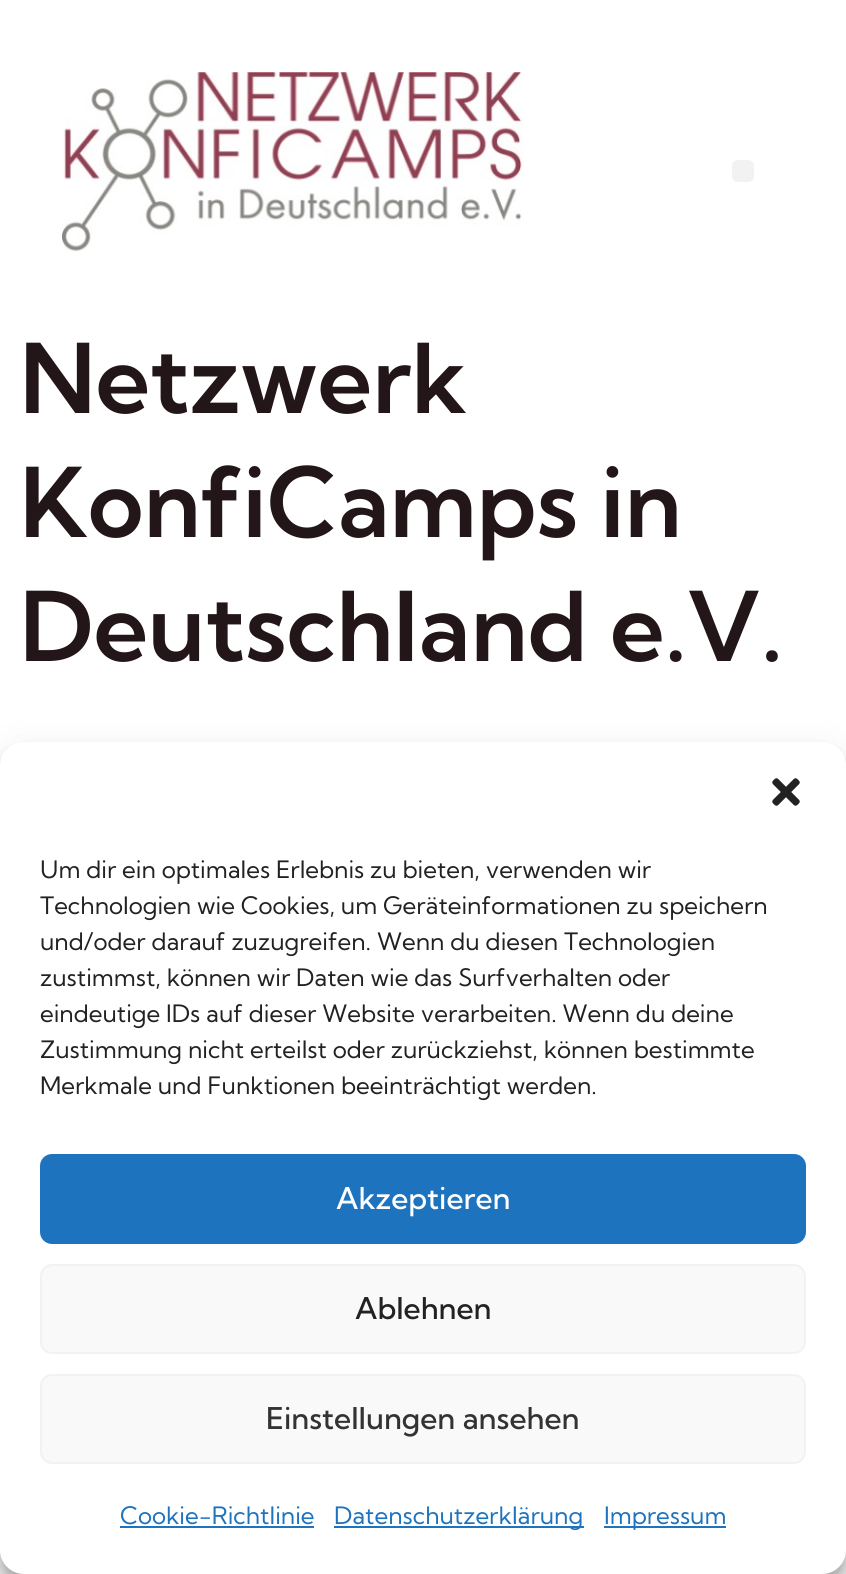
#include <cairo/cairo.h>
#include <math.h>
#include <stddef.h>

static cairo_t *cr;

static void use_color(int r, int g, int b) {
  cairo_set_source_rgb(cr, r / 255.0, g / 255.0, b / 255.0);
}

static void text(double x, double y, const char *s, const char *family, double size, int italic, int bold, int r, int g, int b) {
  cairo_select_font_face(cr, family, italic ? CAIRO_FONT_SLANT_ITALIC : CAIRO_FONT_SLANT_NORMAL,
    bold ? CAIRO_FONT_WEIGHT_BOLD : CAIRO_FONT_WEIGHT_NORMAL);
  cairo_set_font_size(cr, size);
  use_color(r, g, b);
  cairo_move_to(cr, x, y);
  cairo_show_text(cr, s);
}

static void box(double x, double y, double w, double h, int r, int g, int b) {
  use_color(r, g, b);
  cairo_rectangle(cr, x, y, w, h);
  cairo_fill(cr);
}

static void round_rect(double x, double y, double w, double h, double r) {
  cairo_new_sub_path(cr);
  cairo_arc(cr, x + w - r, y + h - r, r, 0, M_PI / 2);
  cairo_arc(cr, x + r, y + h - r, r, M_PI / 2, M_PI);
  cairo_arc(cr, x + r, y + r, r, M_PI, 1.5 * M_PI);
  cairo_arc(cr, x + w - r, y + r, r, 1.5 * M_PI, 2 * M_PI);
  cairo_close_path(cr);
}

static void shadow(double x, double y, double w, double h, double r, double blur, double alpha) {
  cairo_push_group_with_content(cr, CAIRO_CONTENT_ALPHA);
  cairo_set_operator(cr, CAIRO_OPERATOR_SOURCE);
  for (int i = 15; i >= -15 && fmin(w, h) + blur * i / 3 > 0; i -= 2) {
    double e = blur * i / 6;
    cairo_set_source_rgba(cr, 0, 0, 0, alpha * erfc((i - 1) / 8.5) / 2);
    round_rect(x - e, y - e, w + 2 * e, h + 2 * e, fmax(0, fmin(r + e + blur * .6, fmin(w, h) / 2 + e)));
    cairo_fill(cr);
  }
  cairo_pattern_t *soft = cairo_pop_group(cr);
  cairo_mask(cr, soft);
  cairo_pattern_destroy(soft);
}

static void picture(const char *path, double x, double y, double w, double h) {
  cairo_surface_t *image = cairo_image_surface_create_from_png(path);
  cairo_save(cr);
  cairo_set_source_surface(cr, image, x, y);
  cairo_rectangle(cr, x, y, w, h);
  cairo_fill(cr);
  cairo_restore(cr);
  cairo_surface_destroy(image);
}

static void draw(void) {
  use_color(255, 255, 255);
  cairo_paint(cr);
  picture("img_01.png", 62, 72, 462, 180);
  use_color(242, 242, 242);
  round_rect(732, 160, 22, 22, 6);
  cairo_fill(cr);
  use_color(0, 0, 0);
  shadow(0, 754, 846, 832, 24, 6, 0.23);
  shadow(0, 762, 846, 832, 24, 20, 0.19);
  use_color(255, 255, 255);
  round_rect(0, 742, 846, 832, 24);
  cairo_fill(cr);
  picture("img_02.png", 772, 778, 28, 28);
  use_color(30, 115, 190);
  round_rect(41, 1155, 764, 88, 11);
  cairo_fill_preserve(cr);
  cairo_stroke(cr);
  use_color(249, 249, 249);
  round_rect(41, 1265, 764, 88, 11);
  cairo_fill_preserve(cr);
  use_color(242, 242, 242);
  cairo_stroke(cr);
  use_color(249, 249, 249);
  round_rect(41, 1375, 764, 88, 11);
  cairo_fill_preserve(cr);
  use_color(242, 242, 242);
  cairo_stroke(cr);
  box(120, 1526, 194, 2, 30, 115, 190);
  box(334, 1526, 250, 2, 30, 115, 190);
  box(604, 1526, 122, 2, 30, 115, 190);
  text(20, 413, "Netzwerk", "Kumbh Sans SemiBold", 96, 0, 0, 35, 22, 25);
  text(20, 537, "KonfiCamps in", "Kumbh Sans SemiBold", 96, 0, 0, 35, 22, 25);
  text(20, 661, "Deutschland e.V.", "Kumbh Sans SemiBold", 96, 0, 0, 35, 22, 25);
  text(40, 878, "Um dir ein optimales Erlebnis zu bieten, verwenden wir", "Kumbh Sans", 24, 0, 0, 34, 34, 34);
  text(40, 914, "Technologien wie Cookies, um Geräteinformationen zu speichern", "Kumbh Sans", 24, 0, 0, 34, 34, 34);
  text(40, 950, "und/oder darauf zuzugreifen. Wenn du diesen Technologien", "Kumbh Sans", 24, 0, 0, 34, 34, 34);
  text(40, 986, "zustimmst, können wir Daten wie das Surfverhalten oder", "Kumbh Sans", 24, 0, 0, 34, 34, 34);
  text(40, 1022, "eindeutige IDs auf dieser Website verarbeiten. Wenn du deine", "Kumbh Sans", 24, 0, 0, 34, 34, 34);
  text(40, 1058, "Zustimmung nicht erteilst oder zurückziehst, können bestimmte", "Kumbh Sans", 24, 0, 0, 34, 34, 34);
  text(40, 1094, "Merkmale und Funktionen beeinträchtigt werden.", "Kumbh Sans", 24, 0, 0, 34, 34, 34);
  text(336, 1209, "Akzeptieren", "Kumbh Sans Medium", 30, 0, 0, 255, 255, 255);
  text(355, 1319, "Ablehnen", "Kumbh Sans Medium", 30, 0, 0, 34, 34, 34);
  text(266, 1429, "Einstellungen ansehen", "Kumbh Sans Medium", 30, 0, 0, 51, 51, 51);
  text(120, 1524, "Cookie-Richtlinie", "Kumbh Sans", 24, 0, 0, 30, 115, 190);
  text(334, 1524, "Datenschutzerklärung", "Kumbh Sans", 24, 0, 0, 30, 115, 190);
  text(604, 1524, "Impressum", "Kumbh Sans", 24, 0, 0, 30, 115, 190);
}

int main(void) {
  cairo_surface_t *surface = cairo_image_surface_create(CAIRO_FORMAT_RGB24, 846, 1574);
  cr = cairo_create(surface);
  cairo_font_options_t *options = cairo_font_options_create();
  cairo_font_options_set_hint_metrics(options, CAIRO_HINT_METRICS_OFF);
  cairo_font_options_set_hint_style(options, CAIRO_HINT_STYLE_NONE);
  cairo_set_font_options(cr, options);
  cairo_set_miter_limit(cr, 4);
  draw();
  cairo_surface_write_to_png(surface, "out.png");
  cairo_font_options_destroy(options);
  cairo_destroy(cr);
  cairo_surface_destroy(surface);
  return 0;
}
